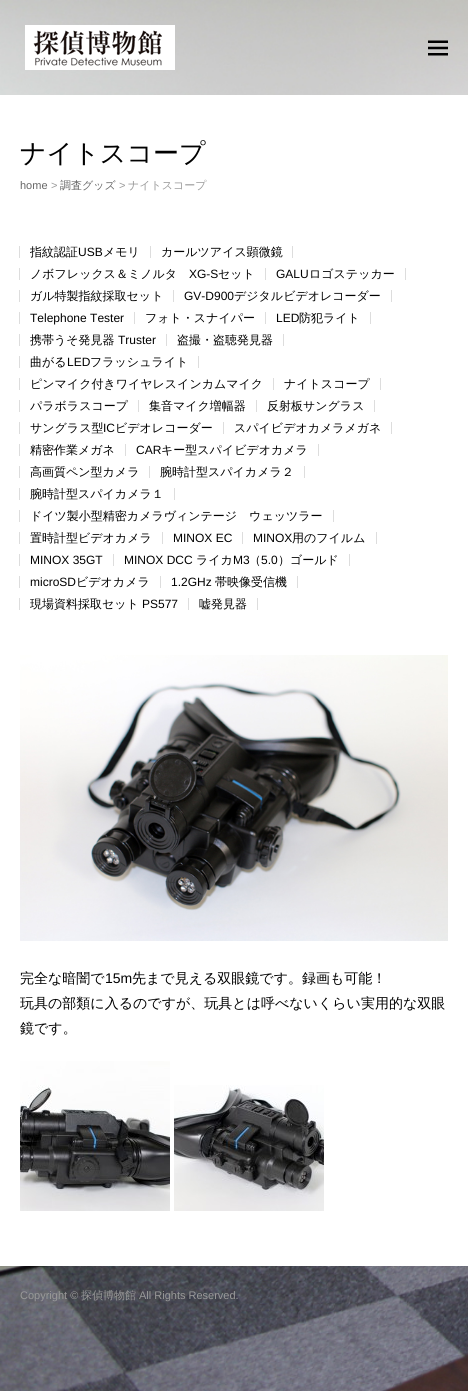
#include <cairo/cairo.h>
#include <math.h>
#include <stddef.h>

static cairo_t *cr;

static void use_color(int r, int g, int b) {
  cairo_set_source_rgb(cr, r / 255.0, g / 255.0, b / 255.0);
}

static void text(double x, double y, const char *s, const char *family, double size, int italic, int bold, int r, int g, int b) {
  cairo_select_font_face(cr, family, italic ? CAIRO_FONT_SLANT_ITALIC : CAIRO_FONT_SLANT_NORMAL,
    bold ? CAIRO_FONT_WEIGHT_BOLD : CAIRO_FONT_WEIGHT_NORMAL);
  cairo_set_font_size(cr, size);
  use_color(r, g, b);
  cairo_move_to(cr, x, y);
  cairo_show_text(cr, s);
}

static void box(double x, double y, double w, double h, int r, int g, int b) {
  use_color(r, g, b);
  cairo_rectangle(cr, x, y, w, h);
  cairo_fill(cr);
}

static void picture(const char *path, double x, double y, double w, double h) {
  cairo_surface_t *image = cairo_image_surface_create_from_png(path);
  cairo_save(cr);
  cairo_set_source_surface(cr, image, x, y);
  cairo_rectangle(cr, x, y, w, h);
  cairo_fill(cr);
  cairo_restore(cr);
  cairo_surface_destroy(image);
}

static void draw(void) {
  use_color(255, 255, 255);
  cairo_paint(cr);
  picture("img_01.png", 0, 0, 468, 1391);
  picture("img_02.png", 25, 25, 150, 45);
  picture("img_03.png", 428, 40, 20, 16);
  box(0, 95, 468, 1171, 255, 255, 255);
  box(150, 246, 1, 12, 221, 221, 221);
  box(19, 246, 1, 12, 221, 221, 221);
  box(292, 246, 1, 12, 221, 221, 221);
  box(265, 268, 1, 12, 221, 221, 221);
  box(19, 268, 1, 12, 221, 221, 221);
  box(405, 268, 1, 12, 221, 221, 221);
  box(173, 290, 1, 12, 221, 221, 221);
  box(19, 290, 1, 12, 221, 221, 221);
  box(391, 290, 1, 12, 221, 221, 221);
  box(134, 312, 1, 12, 221, 221, 221);
  box(19, 312, 1, 12, 221, 221, 221);
  box(265, 312, 1, 12, 221, 221, 221);
  box(370, 312, 1, 12, 221, 221, 221);
  box(166, 334, 1, 12, 221, 221, 221);
  box(19, 334, 1, 12, 221, 221, 221);
  box(283, 334, 1, 12, 221, 221, 221);
  box(198, 356, 1, 12, 221, 221, 221);
  box(19, 356, 1, 12, 221, 221, 221);
  box(273, 378, 1, 12, 221, 221, 221);
  box(19, 378, 1, 12, 221, 221, 221);
  box(380, 378, 1, 12, 221, 221, 221);
  box(138, 400, 1, 12, 221, 221, 221);
  box(19, 400, 1, 12, 221, 221, 221);
  box(256, 400, 1, 12, 221, 221, 221);
  box(374, 400, 1, 12, 221, 221, 221);
  box(223, 422, 1, 12, 221, 221, 221);
  box(19, 422, 1, 12, 221, 221, 221);
  box(391, 422, 1, 12, 221, 221, 221);
  box(125, 444, 1, 12, 221, 221, 221);
  box(19, 444, 1, 12, 221, 221, 221);
  box(318, 444, 1, 12, 221, 221, 221);
  box(149, 466, 1, 12, 221, 221, 221);
  box(19, 466, 1, 12, 221, 221, 221);
  box(304, 466, 1, 12, 221, 221, 221);
  box(174, 488, 1, 12, 221, 221, 221);
  box(19, 488, 1, 12, 221, 221, 221);
  box(333, 510, 1, 12, 221, 221, 221);
  box(19, 510, 1, 12, 221, 221, 221);
  box(162, 532, 1, 12, 221, 221, 221);
  box(19, 532, 1, 12, 221, 221, 221);
  box(242, 532, 1, 12, 221, 221, 221);
  box(376, 532, 1, 12, 221, 221, 221);
  box(113, 554, 1, 12, 221, 221, 221);
  box(19, 554, 1, 12, 221, 221, 221);
  box(349, 554, 1, 12, 221, 221, 221);
  box(160, 576, 1, 12, 221, 221, 221);
  box(19, 576, 1, 12, 221, 221, 221);
  box(297, 576, 1, 12, 221, 221, 221);
  box(188, 598, 1, 12, 221, 221, 221);
  box(19, 598, 1, 12, 221, 221, 221);
  box(257, 598, 1, 12, 221, 221, 221);
  picture("img_04.png", 20, 655, 428, 286);
  picture("img_05.png", 20, 1061, 150, 150);
  picture("img_06.png", 174, 1085, 150, 126);
  text(20, 162, "ナイトスコープ", "WenQuanYi Zen Hei Medium", 26, 0, 0, 0, 0, 0);
  text(20, 189, "home", "Liberation Sans", 11, 0, 0, 102, 102, 102);
  text(51, 189, ">", "Liberation Sans", 11, 0, 0, 153, 153, 153);
  text(60, 189, "調査グッズ", "WenQuanYi Zen Hei Medium", 11, 0, 0, 102, 102, 102);
  text(119, 189, ">", "Liberation Sans", 11, 0, 0, 153, 153, 153);
  text(128, 189, "ナイトスコープ", "WenQuanYi Zen Hei Medium", 11, 0, 0, 153, 153, 153);
  text(30, 256, "指紋認証", "WenQuanYi Zen Hei Medium", 12, 0, 0, 0, 0, 0);
  text(78, 256, "USB", "Liberation Sans", 12, 0, 0, 0, 0, 0);
  text(103, 256, "メモリ", "WenQuanYi Zen Hei Medium", 12, 0, 0, 0, 0, 0);
  text(161, 256, "カールツアイス顕微鏡", "WenQuanYi Zen Hei Medium", 12, 0, 0, 0, 0, 0);
  text(30, 278, "ノボフレックス＆ミノルタ", "WenQuanYi Zen Hei Medium", 12, 0, 0, 0, 0, 0);
  text(189, 278, "XG-S", "Liberation Sans", 12, 0, 0, 0, 0, 0);
  text(218, 278, "セット", "WenQuanYi Zen Hei Medium", 12, 0, 0, 0, 0, 0);
  text(276, 278, "GALU", "Liberation Sans", 12, 0, 0, 0, 0, 0);
  text(309, 278, "ロゴステッカー", "WenQuanYi Zen Hei Medium", 12, 0, 0, 0, 0, 0);
  text(30, 300, "ガル特製指紋採取セット", "WenQuanYi Zen Hei Medium", 12, 0, 0, 0, 0, 0);
  text(184, 300, "GV-D900", "Liberation Sans", 12, 0, 0, 0, 0, 0);
  text(234, 300, "デジタルビデオレコーダー", "WenQuanYi Zen Hei Medium", 12, 0, 0, 0, 0, 0);
  text(30, 322, "Telephone Tester", "Liberation Sans", 12, 0, 0, 0, 0, 0);
  text(145, 322, "フォト・スナイパー", "WenQuanYi Zen Hei Medium", 12, 0, 0, 0, 0, 0);
  text(276, 322, "LED", "Liberation Sans", 12, 0, 0, 0, 0, 0);
  text(299, 322, "防犯ライト", "WenQuanYi Zen Hei Medium", 12, 0, 0, 0, 0, 0);
  text(30, 344, "携帯うそ発見器", "WenQuanYi Zen Hei Medium", 12, 0, 0, 0, 0, 0);
  text(118, 344, "Truster", "Liberation Sans", 12, 0, 0, 0, 0, 0);
  text(177, 344, "盗撮・盗聴発見器", "WenQuanYi Zen Hei Medium", 12, 0, 0, 0, 0, 0);
  text(30, 366, "曲がる", "WenQuanYi Zen Hei Medium", 12, 0, 0, 0, 0, 0);
  text(67, 366, "LED", "Liberation Sans", 12, 0, 0, 0, 0, 0);
  text(90, 366, "フラッシュライト", "WenQuanYi Zen Hei Medium", 12, 0, 0, 0, 0, 0);
  text(30, 388, "ピンマイク付きワイヤレスインカムマイク", "WenQuanYi Zen Hei Medium", 12, 0, 0, 0, 0, 0);
  text(284, 388, "ナイトスコープ", "WenQuanYi Zen Hei Medium", 12, 0, 0, 0, 0, 0);
  text(30, 410, "パラボラスコープ", "WenQuanYi Zen Hei Medium", 12, 0, 0, 0, 0, 0);
  text(149, 410, "集音マイク増幅器", "WenQuanYi Zen Hei Medium", 12, 0, 0, 0, 0, 0);
  text(267, 410, "反射板サングラス", "WenQuanYi Zen Hei Medium", 12, 0, 0, 0, 0, 0);
  text(30, 432, "サングラス型", "WenQuanYi Zen Hei Medium", 12, 0, 0, 0, 0, 0);
  text(103, 432, "IC", "Liberation Sans", 12, 0, 0, 0, 0, 0);
  text(115, 432, "ビデオレコーダー", "WenQuanYi Zen Hei Medium", 12, 0, 0, 0, 0, 0);
  text(234, 432, "スパイビデオカメラメガネ", "WenQuanYi Zen Hei Medium", 12, 0, 0, 0, 0, 0);
  text(30, 454, "精密作業メガネ", "WenQuanYi Zen Hei Medium", 12, 0, 0, 0, 0, 0);
  text(136, 454, "CAR", "Liberation Sans", 12, 0, 0, 0, 0, 0);
  text(161, 454, "キー型スパイビデオカメラ", "WenQuanYi Zen Hei Medium", 12, 0, 0, 0, 0, 0);
  text(30, 476, "高画質ペン型カメラ", "WenQuanYi Zen Hei Medium", 12, 0, 0, 0, 0, 0);
  text(160, 476, "腕時計型スパイカメラ２", "WenQuanYi Zen Hei Medium", 12, 0, 0, 0, 0, 0);
  text(30, 498, "腕時計型スパイカメラ１", "WenQuanYi Zen Hei Medium", 12, 0, 0, 0, 0, 0);
  text(30, 520, "ドイツ製小型精密カメラヴィンテージ　ウェッツラー", "WenQuanYi Zen Hei Medium", 12, 0, 0, 0, 0, 0);
  text(30, 542, "置時計型ビデオカメラ", "WenQuanYi Zen Hei Medium", 12, 0, 0, 0, 0, 0);
  text(173, 542, "MINOX EC", "Liberation Sans", 12, 0, 0, 0, 0, 0);
  text(253, 542, "MINOX", "Liberation Sans", 12, 0, 0, 0, 0, 0);
  text(292, 542, "用のフイルム", "WenQuanYi Zen Hei Medium", 12, 0, 0, 0, 0, 0);
  text(30, 564, "MINOX 35GT", "Liberation Sans", 12, 0, 0, 0, 0, 0);
  text(124, 564, "MINOX DCC", "Liberation Sans", 12, 0, 0, 0, 0, 0);
  text(196, 564, "ライカ", "WenQuanYi Zen Hei Medium", 12, 0, 0, 0, 0, 0);
  text(233, 564, "M3", "Liberation Sans", 12, 0, 0, 0, 0, 0);
  text(249, 564, "（", "WenQuanYi Zen Hei Medium", 12, 0, 0, 0, 0, 0);
  text(261, 564, "5.0", "Liberation Sans", 12, 0, 0, 0, 0, 0);
  text(278, 564, "）ゴールド", "WenQuanYi Zen Hei Medium", 12, 0, 0, 0, 0, 0);
  text(30, 586, "microSD", "Liberation Sans", 12, 0, 0, 0, 0, 0);
  text(76, 586, "ビデオカメラ", "WenQuanYi Zen Hei Medium", 12, 0, 0, 0, 0, 0);
  text(171, 586, "1.2GHz", "Liberation Sans", 12, 0, 0, 0, 0, 0);
  text(215, 586, "帯映像受信機", "WenQuanYi Zen Hei Medium", 12, 0, 0, 0, 0, 0);
  text(30, 608, "現場資料採取セット", "WenQuanYi Zen Hei Medium", 12, 0, 0, 0, 0, 0);
  text(142, 608, "PS577", "Liberation Sans", 12, 0, 0, 0, 0, 0);
  text(199, 608, "嘘発見器", "WenQuanYi Zen Hei Medium", 12, 0, 0, 0, 0, 0);
  text(20, 983, "完全な暗闇で", "WenQuanYi Zen Hei Medium", 14, 0, 0, 0, 0, 0);
  text(105, 983, "15m", "Liberation Sans", 14, 0, 0, 0, 0, 0);
  text(132, 983, "先まで見える双眼鏡です。録画も可能！", "WenQuanYi Zen Hei Medium", 14, 0, 0, 0, 0, 0);
  text(20, 1008, "玩具の部類に入るのですが、玩具とは呼べないくらい実用的な双眼", "WenQuanYi Zen Hei Medium", 14, 0, 0, 0, 0, 0);
  text(20, 1033, "鏡です。", "WenQuanYi Zen Hei Medium", 14, 0, 0, 0, 0, 0);
  text(20, 1299, "Copyright ©", "Liberation Sans", 11, 0, 0, 153, 153, 153);
  text(81, 1299, "探偵博物館", "WenQuanYi Zen Hei Medium", 11, 0, 0, 153, 153, 153);
  text(139, 1299, "All Rights Reserved.", "Liberation Sans", 11, 0, 0, 153, 153, 153);
}

int main(void) {
  cairo_surface_t *surface = cairo_image_surface_create(CAIRO_FORMAT_RGB24, 468, 1391);
  cr = cairo_create(surface);
  cairo_font_options_t *options = cairo_font_options_create();
  cairo_font_options_set_hint_metrics(options, CAIRO_HINT_METRICS_OFF);
  cairo_font_options_set_hint_style(options, CAIRO_HINT_STYLE_NONE);
  cairo_set_font_options(cr, options);
  cairo_set_miter_limit(cr, 4);
  draw();
  cairo_surface_write_to_png(surface, "out.png");
  cairo_font_options_destroy(options);
  cairo_destroy(cr);
  cairo_surface_destroy(surface);
  return 0;
}
